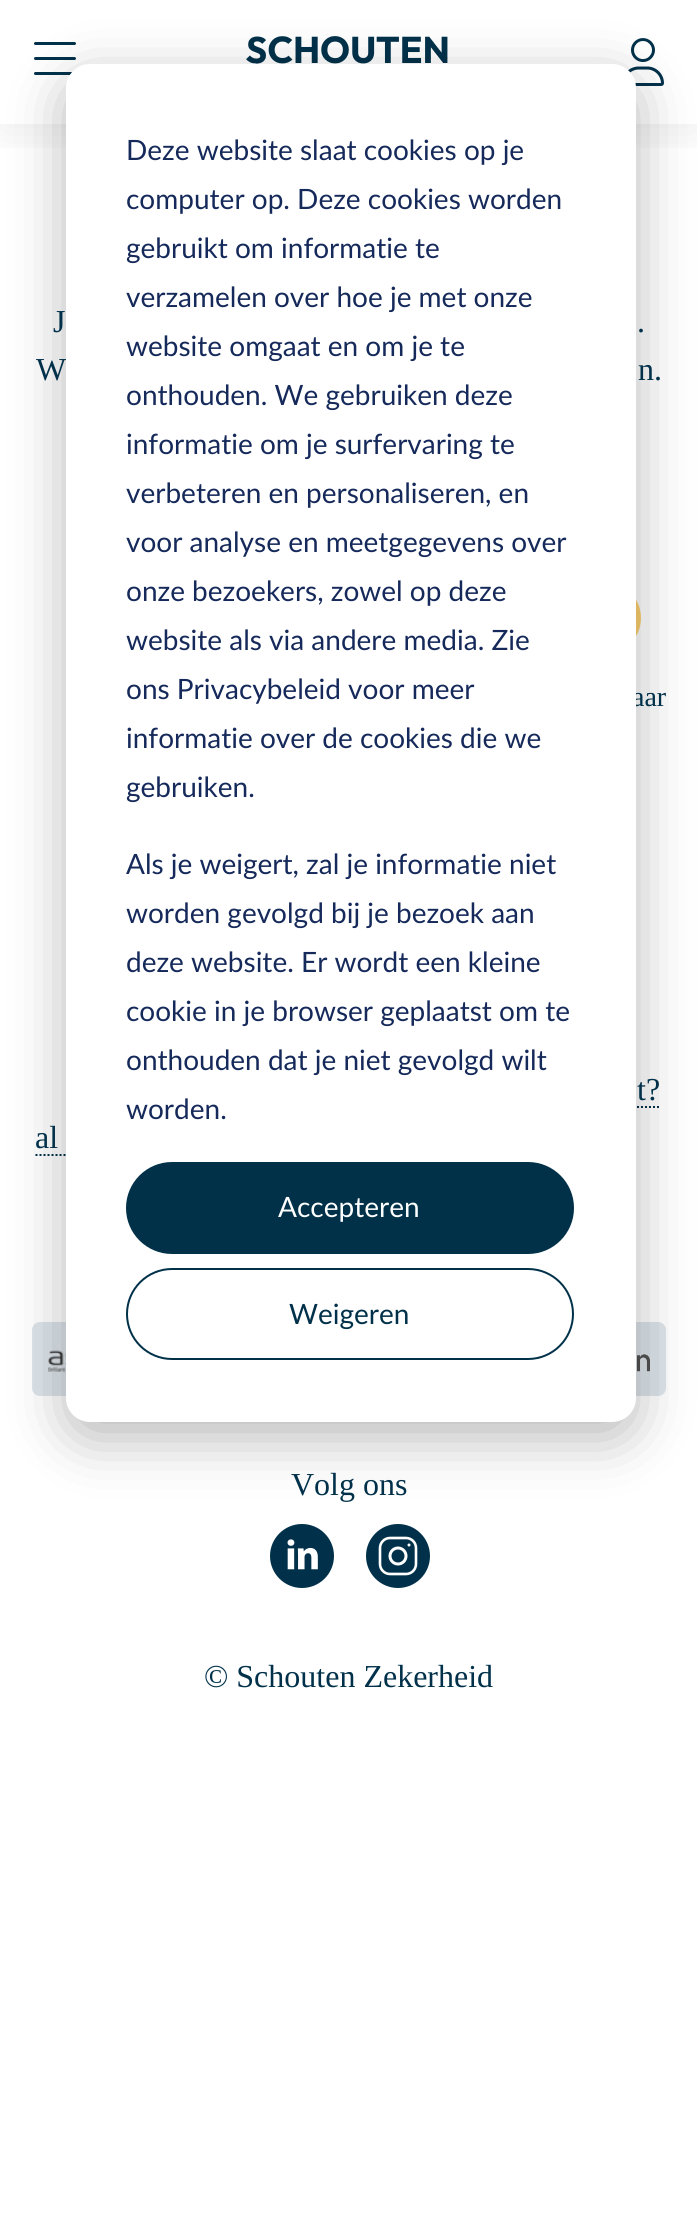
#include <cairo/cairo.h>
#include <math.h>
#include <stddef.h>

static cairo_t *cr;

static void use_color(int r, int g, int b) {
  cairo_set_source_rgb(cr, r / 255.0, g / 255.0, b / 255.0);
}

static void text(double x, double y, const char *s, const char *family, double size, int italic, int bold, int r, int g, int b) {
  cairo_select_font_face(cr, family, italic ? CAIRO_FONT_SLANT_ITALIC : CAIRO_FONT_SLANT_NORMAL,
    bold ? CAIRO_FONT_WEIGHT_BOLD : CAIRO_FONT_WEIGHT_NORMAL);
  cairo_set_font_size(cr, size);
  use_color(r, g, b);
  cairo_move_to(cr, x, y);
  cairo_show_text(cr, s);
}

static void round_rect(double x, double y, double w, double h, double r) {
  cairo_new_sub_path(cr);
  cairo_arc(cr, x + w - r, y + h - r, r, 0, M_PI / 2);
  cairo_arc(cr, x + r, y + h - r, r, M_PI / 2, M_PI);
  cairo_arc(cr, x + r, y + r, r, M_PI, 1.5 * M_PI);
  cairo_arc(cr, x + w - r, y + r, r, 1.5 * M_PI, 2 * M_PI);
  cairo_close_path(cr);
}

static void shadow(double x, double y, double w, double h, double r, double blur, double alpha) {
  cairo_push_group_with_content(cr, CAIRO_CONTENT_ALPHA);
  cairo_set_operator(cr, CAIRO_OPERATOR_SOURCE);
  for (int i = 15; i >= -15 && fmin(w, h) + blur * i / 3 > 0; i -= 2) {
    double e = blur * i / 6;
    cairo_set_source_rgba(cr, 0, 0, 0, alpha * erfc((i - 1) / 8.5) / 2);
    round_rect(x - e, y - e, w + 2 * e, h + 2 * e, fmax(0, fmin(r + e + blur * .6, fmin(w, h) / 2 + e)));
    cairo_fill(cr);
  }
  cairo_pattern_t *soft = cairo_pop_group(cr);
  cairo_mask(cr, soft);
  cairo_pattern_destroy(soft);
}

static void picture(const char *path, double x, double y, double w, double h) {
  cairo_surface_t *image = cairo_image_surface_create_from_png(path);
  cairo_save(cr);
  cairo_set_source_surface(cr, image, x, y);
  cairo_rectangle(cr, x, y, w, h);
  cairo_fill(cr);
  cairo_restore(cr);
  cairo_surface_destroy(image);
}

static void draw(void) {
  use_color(255, 255, 255);
  cairo_paint(cr);
  cairo_save(cr);
  cairo_rectangle(cr, 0, 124, 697, 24);
  cairo_clip(cr);
  use_color(41, 41, 41);
  shadow(0, 8, 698, 124, 0, 24, 0.08);
  cairo_restore(cr);
  picture("img_01.png", 34, 42, 42, 33);
  picture("img_02.png", 246, 36, 202, 28);
  picture("img_03.png", 627, 38, 37, 48);
  picture("img_04.png", 636, 600, 5, 36);
  cairo_new_path(cr);
  cairo_move_to(cr, 365, 1107);
  cairo_line_to(cr, 660, 1107);
  use_color(1, 49, 74);
  cairo_set_dash(cr, (double[]){2, 2}, 2, 0);
  cairo_stroke(cr);
  cairo_new_path(cr);
  cairo_move_to(cr, 35.5, 1155);
  cairo_line_to(cr, 333, 1155);
  cairo_stroke(cr);
  use_color(221, 228, 234);
  round_rect(32, 1322, 146, 74, 8);
  cairo_fill(cr);
  picture("img_05.png", 48, 1350, 18, 22);
  round_rect(520, 1322, 146, 74, 8);
  cairo_fill(cr);
  picture("img_06.png", 636, 1354, 14, 18);
  use_color(0, 0, 0);
  shadow(66, 80, 570, 1358, 24, 28, 0.28);
  picture("img_07.png", 270, 1524, 64, 64);
  picture("img_08.png", 366, 1524, 64, 64);
  text(53, 332, "J", "Liberation Serif", 32, 0, 0, 1, 49, 74);
  text(637, 332, ".", "Liberation Serif", 32, 0, 0, 1, 49, 74);
  text(36, 380, "W", "Liberation Serif", 32, 0, 0, 1, 49, 74);
  text(638, 380, "n.", "Liberation Serif", 32, 0, 0, 1, 49, 74);
  text(632, 706, "aar", "Liberation Serif", 28, 0, 0, 1, 49, 74);
  use_color(255, 255, 255);
  round_rect(66, 64, 570, 1358, 24);
  cairo_fill(cr);
  round_rect(127, 1269, 446, 90, 45);
  use_color(0, 49, 73);
  cairo_set_dash(cr, NULL, 0, 0);
  cairo_stroke(cr);
  text(289, 1324, "Weigeren", "Lato", 28, 0, 0, 1, 49, 74);
  use_color(0, 49, 73);
  round_rect(127, 1163, 446, 90, 45);
  cairo_fill_preserve(cr);
  cairo_stroke(cr);
  text(278, 1217, "Accepteren", "Lato", 28, 0, 0, 255, 255, 255);
  text(126, 1119, "worden.", "Lato", 28, 0, 0, 21, 41, 90);
  text(126, 1070, "onthouden dat je niet gevolgd wilt", "Lato", 28, 0, 0, 21, 41, 90);
  text(126, 1021, "cookie in je browser geplaatst om te", "Lato", 28, 0, 0, 21, 41, 90);
  text(126, 972, "deze website. Er wordt een kleine", "Lato", 28, 0, 0, 21, 41, 90);
  text(126, 923, "worden gevolgd bij je bezoek aan", "Lato", 28, 0, 0, 21, 41, 90);
  text(126, 874, "Als je weigert, zal je informatie niet", "Lato", 28, 0, 0, 21, 41, 90);
  text(126, 797, "gebruiken.", "Lato", 28, 0, 0, 21, 41, 90);
  text(126, 748, "informatie over de cookies die we", "Lato", 28, 0, 0, 21, 41, 90);
  text(126, 699, "ons Privacybeleid voor meer", "Lato", 28, 0, 0, 21, 41, 90);
  text(126, 650, "website als via andere media. Zie", "Lato", 28, 0, 0, 21, 41, 90);
  text(126, 601, "onze bezoekers, zowel op deze", "Lato", 28, 0, 0, 21, 41, 90);
  text(126, 552, "voor analyse en meetgegevens over", "Lato", 28, 0, 0, 21, 41, 90);
  text(126, 503, "verbeteren en personaliseren, en", "Lato", 28, 0, 0, 21, 41, 90);
  text(126, 454, "informatie om je surfervaring te", "Lato", 28, 0, 0, 21, 41, 90);
  text(126, 405, "onthouden. We gebruiken deze", "Lato", 28, 0, 0, 21, 41, 90);
  text(126, 356, "website omgaat en om je te", "Lato", 28, 0, 0, 21, 41, 90);
  text(126, 307, "verzamelen over hoe je met onze", "Lato", 28, 0, 0, 21, 41, 90);
  text(126, 258, "gebruikt om informatie te", "Lato", 28, 0, 0, 21, 41, 90);
  text(126, 209, "computer op. Deze cookies worden", "Lato", 28, 0, 0, 21, 41, 90);
  text(126, 160, "Deze website slaat cookies op je", "Lato", 28, 0, 0, 21, 41, 90);
  text(637, 1100, "t?", "Liberation Serif", 32, 0, 0, 1, 49, 74);
  text(35, 1148, "al", "Liberation Serif", 32, 0, 0, 1, 49, 74);
  text(291, 1495, "Volg ons", "Liberation Serif", 32, 0, 0, 1, 49, 74);
  text(204, 1687, "© Schouten Zekerheid", "Liberation Serif", 32, 0, 0, 1, 49, 74);
}

int main(void) {
  cairo_surface_t *surface = cairo_image_surface_create(CAIRO_FORMAT_RGB24, 697, 2234);
  cr = cairo_create(surface);
  cairo_font_options_t *options = cairo_font_options_create();
  cairo_font_options_set_hint_metrics(options, CAIRO_HINT_METRICS_OFF);
  cairo_font_options_set_hint_style(options, CAIRO_HINT_STYLE_NONE);
  cairo_set_font_options(cr, options);
  cairo_set_miter_limit(cr, 4);
  draw();
  cairo_surface_write_to_png(surface, "out.png");
  cairo_font_options_destroy(options);
  cairo_destroy(cr);
  cairo_surface_destroy(surface);
  return 0;
}
